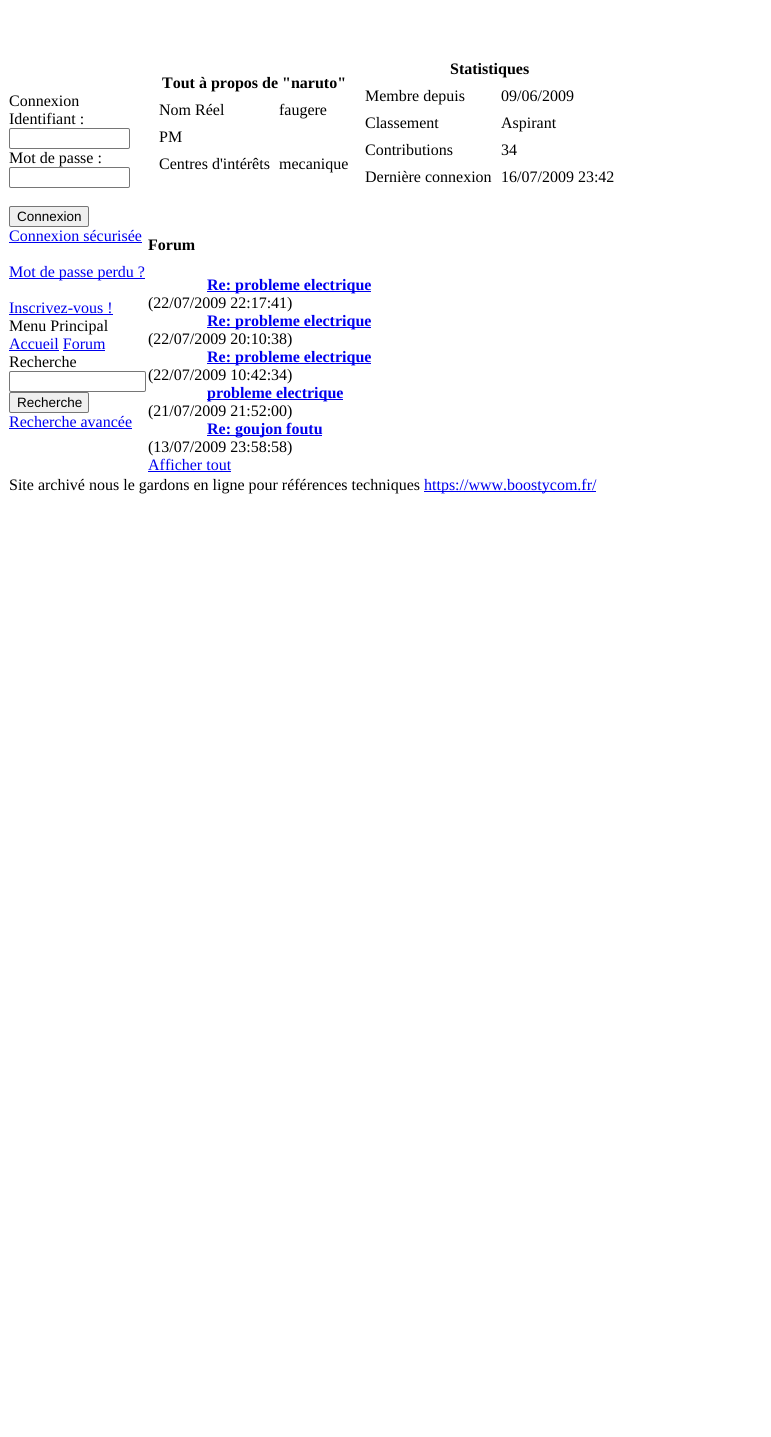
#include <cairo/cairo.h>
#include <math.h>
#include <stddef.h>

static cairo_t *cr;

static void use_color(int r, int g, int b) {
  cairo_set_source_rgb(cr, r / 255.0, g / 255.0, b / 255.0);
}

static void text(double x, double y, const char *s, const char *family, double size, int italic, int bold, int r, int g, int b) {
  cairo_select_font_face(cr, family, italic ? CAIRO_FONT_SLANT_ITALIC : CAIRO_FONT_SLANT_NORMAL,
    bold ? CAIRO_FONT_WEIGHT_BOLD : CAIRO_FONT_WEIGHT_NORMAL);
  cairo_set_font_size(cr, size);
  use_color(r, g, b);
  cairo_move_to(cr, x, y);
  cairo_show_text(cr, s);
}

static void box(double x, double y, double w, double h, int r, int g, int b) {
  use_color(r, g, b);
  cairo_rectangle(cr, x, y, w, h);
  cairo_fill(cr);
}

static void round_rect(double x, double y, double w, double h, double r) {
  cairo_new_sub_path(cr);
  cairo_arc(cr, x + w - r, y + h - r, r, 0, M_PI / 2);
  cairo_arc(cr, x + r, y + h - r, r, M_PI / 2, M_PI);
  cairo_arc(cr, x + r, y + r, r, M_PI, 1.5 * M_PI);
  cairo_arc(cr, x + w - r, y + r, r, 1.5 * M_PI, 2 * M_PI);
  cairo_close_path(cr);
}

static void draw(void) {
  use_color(255, 255, 255);
  cairo_paint(cr);
  round_rect(9.5, 128.5, 120, 20, 1.5);
  use_color(118, 118, 118);
  cairo_set_line_width(cr, 1);
  cairo_stroke(cr);
  round_rect(9.5, 167.5, 120, 20, 1.5);
  cairo_stroke(cr);
  use_color(239, 239, 239);
  round_rect(9.5, 206.5, 79, 20, 1.5);
  cairo_fill_preserve(cr);
  use_color(118, 118, 118);
  cairo_stroke(cr);
  box(9, 242, 133, 1, 0, 0, 238);
  box(9, 278, 136, 1, 0, 0, 238);
  box(9, 314, 104, 1, 0, 0, 238);
  box(9, 350, 50, 1, 0, 0, 238);
  box(63, 350, 42, 1, 0, 0, 238);
  round_rect(9.5, 371.5, 136, 20, 1.5);
  use_color(118, 118, 118);
  cairo_stroke(cr);
  use_color(239, 239, 239);
  round_rect(9.5, 392.5, 79, 20, 1.5);
  cairo_fill_preserve(cr);
  use_color(118, 118, 118);
  cairo_stroke(cr);
  box(9, 428, 123, 1, 0, 0, 238);
  box(207, 291, 164, 1, 0, 0, 238);
  box(207, 327, 164, 1, 0, 0, 238);
  box(207, 363, 164, 1, 0, 0, 238);
  box(207, 399, 136, 1, 0, 0, 238);
  box(207, 435, 115, 1, 0, 0, 238);
  box(148, 471, 83, 1, 0, 0, 238);
  box(424, 491, 172, 1, 0, 0, 238);
  text(9, 106, "Connexion", "Liberation Serif", 16, 0, 0, 0, 0, 0);
  text(9, 124, "Identifiant :", "Liberation Serif", 16, 0, 0, 0, 0, 0);
  text(9, 163, "Mot de passe :", "Liberation Serif", 16, 0, 0, 0, 0, 0);
  text(17, 221, "Connexion", "Liberation Sans", 13.5, 0, 0, 0, 0, 0);
  text(9, 241, "Connexion sécurisée", "Liberation Serif", 16, 0, 0, 0, 0, 238);
  text(9, 277, "Mot de passe perdu ?", "Liberation Serif", 16, 0, 0, 0, 0, 238);
  text(9, 313, "Inscrivez-vous !", "Liberation Serif", 16, 0, 0, 0, 0, 238);
  text(9, 331, "Menu Principal", "Liberation Serif", 16, 0, 0, 0, 0, 0);
  text(9, 349, "Accueil Forum", "Liberation Serif", 16, 0, 0, 0, 0, 238);
  text(9, 367, "Recherche", "Liberation Serif", 16, 0, 0, 0, 0, 0);
  text(17, 407, "Recherche", "Liberation Sans", 13.5, 0, 0, 0, 0, 0);
  text(9, 427, "Recherche avancée", "Liberation Serif", 16, 0, 0, 0, 0, 238);
  text(162, 88, "Tout à propos de \"naruto\"", "Liberation Serif", 16, 0, 1, 0, 0, 0);
  text(159, 115, "Nom Réel", "Liberation Serif", 16, 0, 0, 0, 0, 0);
  text(279, 115, "faugere", "Liberation Serif", 16, 0, 0, 0, 0, 0);
  text(159, 142, "PM", "Liberation Serif", 16, 0, 0, 0, 0, 0);
  text(159, 169, "Centres d'intérêts", "Liberation Serif", 16, 0, 0, 0, 0, 0);
  text(279, 169, "mecanique", "Liberation Serif", 16, 0, 0, 0, 0, 0);
  text(450, 74, "Statistiques", "Liberation Serif", 16, 0, 1, 0, 0, 0);
  text(365, 101, "Membre depuis", "Liberation Serif", 16, 0, 0, 0, 0, 0);
  text(501, 101, "09/06/2009", "Liberation Serif", 16, 0, 0, 0, 0, 0);
  text(365, 128, "Classement", "Liberation Serif", 16, 0, 0, 0, 0, 0);
  text(501, 128, "Aspirant", "Liberation Serif", 16, 0, 0, 0, 0, 0);
  text(365, 155, "Contributions", "Liberation Serif", 16, 0, 0, 0, 0, 0);
  text(501, 155, "34", "Liberation Serif", 16, 0, 0, 0, 0, 0);
  text(365, 182, "Dernière connexion", "Liberation Serif", 16, 0, 0, 0, 0, 0);
  text(501, 182, "16/07/2009 23:42", "Liberation Serif", 16, 0, 0, 0, 0, 0);
  text(148, 250, "Forum", "Liberation Serif", 16, 0, 1, 0, 0, 0);
  text(207, 290, "Re: probleme electrique", "Liberation Serif", 16, 0, 1, 0, 0, 238);
  text(148, 308, "(22/07/2009 22:17:41)", "Liberation Serif", 16, 0, 0, 0, 0, 0);
  text(207, 326, "Re: probleme electrique", "Liberation Serif", 16, 0, 1, 0, 0, 238);
  text(148, 344, "(22/07/2009 20:10:38)", "Liberation Serif", 16, 0, 0, 0, 0, 0);
  text(207, 362, "Re: probleme electrique", "Liberation Serif", 16, 0, 1, 0, 0, 238);
  text(148, 380, "(22/07/2009 10:42:34)", "Liberation Serif", 16, 0, 0, 0, 0, 0);
  text(207, 398, "probleme electrique", "Liberation Serif", 16, 0, 1, 0, 0, 238);
  text(148, 416, "(21/07/2009 21:52:00)", "Liberation Serif", 16, 0, 0, 0, 0, 0);
  text(207, 434, "Re: goujon foutu", "Liberation Serif", 16, 0, 1, 0, 0, 238);
  text(148, 452, "(13/07/2009 23:58:58)", "Liberation Serif", 16, 0, 0, 0, 0, 0);
  text(148, 470, "Afficher tout", "Liberation Serif", 16, 0, 0, 0, 0, 238);
  text(9, 490, "Site archivé nous le gardons en ligne pour références techniques", "Liberation Serif", 16, 0, 0, 0, 0, 0);
  text(424, 490, "https://www.boostycom.fr/", "Liberation Serif", 16, 0, 0, 0, 0, 238);
}

int main(void) {
  cairo_surface_t *surface = cairo_image_surface_create(CAIRO_FORMAT_RGB24, 771, 1437);
  cr = cairo_create(surface);
  cairo_font_options_t *options = cairo_font_options_create();
  cairo_font_options_set_hint_metrics(options, CAIRO_HINT_METRICS_OFF);
  cairo_font_options_set_hint_style(options, CAIRO_HINT_STYLE_NONE);
  cairo_set_font_options(cr, options);
  cairo_set_miter_limit(cr, 4);
  draw();
  cairo_surface_write_to_png(surface, "out.png");
  cairo_font_options_destroy(options);
  cairo_destroy(cr);
  cairo_surface_destroy(surface);
  return 0;
}
